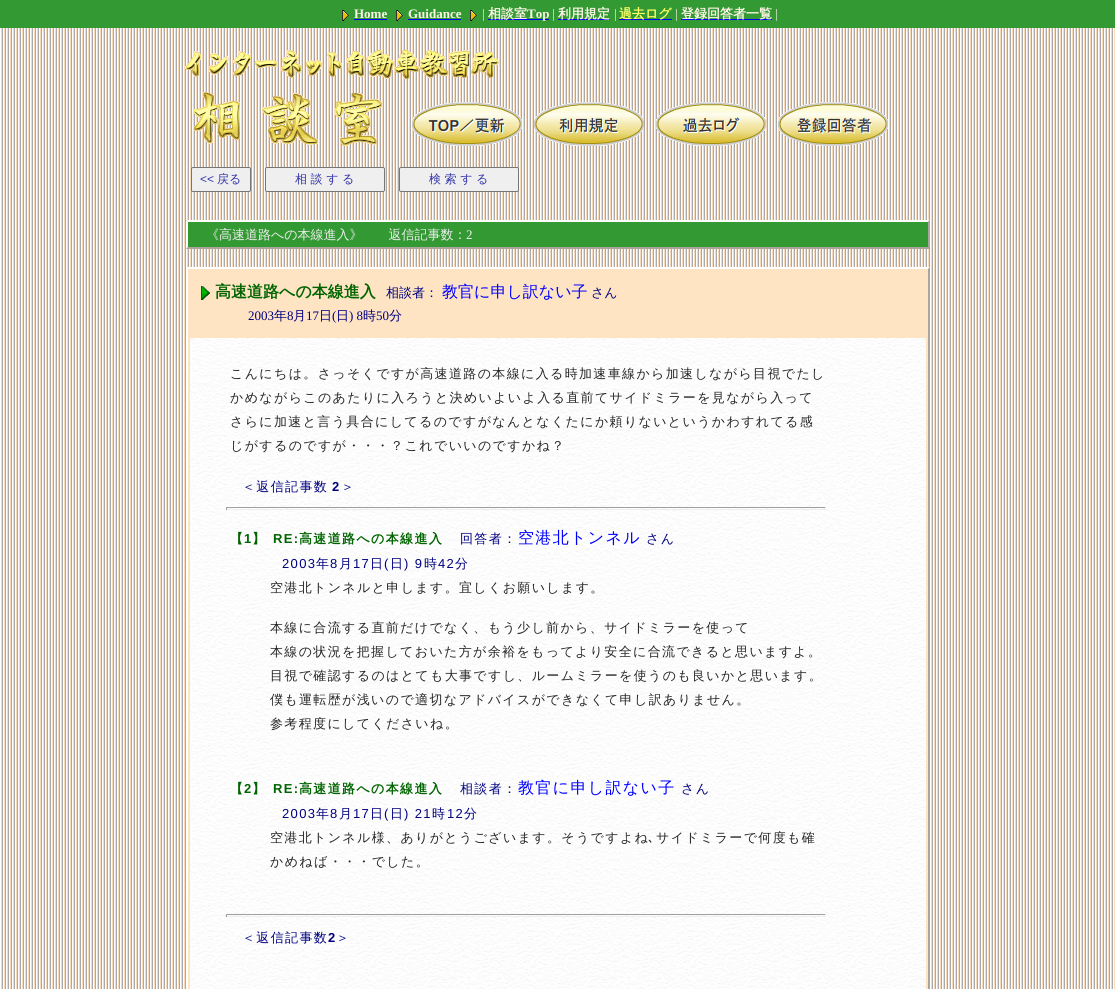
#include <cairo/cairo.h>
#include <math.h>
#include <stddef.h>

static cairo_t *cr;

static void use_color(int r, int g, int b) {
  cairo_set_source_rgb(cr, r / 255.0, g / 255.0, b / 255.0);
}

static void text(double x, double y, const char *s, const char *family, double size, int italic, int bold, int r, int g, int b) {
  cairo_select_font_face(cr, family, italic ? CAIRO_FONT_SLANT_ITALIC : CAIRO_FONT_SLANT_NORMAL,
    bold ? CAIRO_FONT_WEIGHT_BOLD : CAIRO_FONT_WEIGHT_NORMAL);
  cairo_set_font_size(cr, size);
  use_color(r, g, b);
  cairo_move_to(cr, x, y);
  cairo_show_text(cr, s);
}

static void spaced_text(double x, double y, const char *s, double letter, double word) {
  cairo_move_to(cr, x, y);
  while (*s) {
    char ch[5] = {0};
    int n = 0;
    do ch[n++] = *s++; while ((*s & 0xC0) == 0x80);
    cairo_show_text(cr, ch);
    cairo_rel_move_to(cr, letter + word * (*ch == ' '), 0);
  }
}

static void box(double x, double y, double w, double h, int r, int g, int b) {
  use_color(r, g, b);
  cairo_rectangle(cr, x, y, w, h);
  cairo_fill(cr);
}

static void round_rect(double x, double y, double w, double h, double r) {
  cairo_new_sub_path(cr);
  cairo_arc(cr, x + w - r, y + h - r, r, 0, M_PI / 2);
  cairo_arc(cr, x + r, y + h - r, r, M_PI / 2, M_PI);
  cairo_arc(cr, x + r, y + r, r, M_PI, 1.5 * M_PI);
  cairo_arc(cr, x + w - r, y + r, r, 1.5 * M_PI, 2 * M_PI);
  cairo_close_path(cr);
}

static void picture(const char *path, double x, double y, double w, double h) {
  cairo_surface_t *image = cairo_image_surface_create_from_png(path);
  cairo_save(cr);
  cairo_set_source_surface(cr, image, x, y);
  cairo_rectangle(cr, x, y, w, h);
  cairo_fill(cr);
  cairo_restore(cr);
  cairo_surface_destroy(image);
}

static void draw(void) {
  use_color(255, 255, 255);
  cairo_paint(cr);
  picture("img_01.png", 0, 28, 1115, 961);
  box(0, 0, 1115, 28, 51, 153, 51);
  picture("img_02.png", 342, 10, 7, 11);
  box(354, 19, 33, 1, 0, 0, 255);
  picture("img_02.png", 396, 10, 7, 11);
  box(408, 19, 53, 1, 0, 0, 255);
  picture("img_02.png", 470, 10, 7, 11);
  box(488, 19, 61, 1, 0, 0, 255);
  box(558, 19, 52, 1, 0, 0, 255);
  box(619, 19, 53, 1, 0, 0, 255);
  box(681, 19, 91, 1, 0, 0, 255);
  picture("img_03.png", 185, 50, 314, 29);
  picture("img_04.png", 193, 92, 190, 54);
  picture("img_05.png", 412, 102, 110, 44);
  picture("img_06.png", 534, 102, 110, 44);
  picture("img_07.png", 656, 102, 110, 44);
  picture("img_08.png", 778, 102, 110, 44);
  use_color(239, 239, 239);
  round_rect(191.5, 167.5, 59, 24, 1.5);
  cairo_fill_preserve(cr);
  use_color(118, 118, 118);
  cairo_set_line_width(cr, 1);
  cairo_stroke(cr);
  use_color(239, 239, 239);
  round_rect(265.5, 167.5, 119, 24, 1.5);
  cairo_fill_preserve(cr);
  use_color(118, 118, 118);
  cairo_stroke(cr);
  use_color(239, 239, 239);
  round_rect(399.5, 167.5, 119, 24, 1.5);
  cairo_fill_preserve(cr);
  use_color(118, 118, 118);
  cairo_stroke(cr);
  box(186, 220, 744, 29, 51, 153, 51);
  use_color(255, 255, 255);
  cairo_new_path(cr);
  cairo_move_to(cr, 186, 220);
  cairo_line_to(cr, 930, 220);
  cairo_line_to(cr, 928, 222);
  cairo_line_to(cr, 188, 222);
  cairo_close_path(cr);
  cairo_fill(cr);
  use_color(172, 165, 153);
  cairo_new_path(cr);
  cairo_move_to(cr, 930, 220);
  cairo_line_to(cr, 930, 249);
  cairo_line_to(cr, 928, 247);
  cairo_line_to(cr, 928, 222);
  cairo_close_path(cr);
  cairo_fill(cr);
  cairo_new_path(cr);
  cairo_move_to(cr, 930, 249);
  cairo_line_to(cr, 186, 249);
  cairo_line_to(cr, 188, 247);
  cairo_line_to(cr, 928, 247);
  cairo_close_path(cr);
  cairo_fill(cr);
  use_color(255, 255, 255);
  cairo_new_path(cr);
  cairo_move_to(cr, 186, 249);
  cairo_line_to(cr, 186, 220);
  cairo_line_to(cr, 188, 222);
  cairo_line_to(cr, 188, 247);
  cairo_close_path(cr);
  cairo_fill(cr);
  box(186, 267, 744, 722, 255, 228, 196);
  use_color(255, 255, 255);
  cairo_new_path(cr);
  cairo_move_to(cr, 186, 267);
  cairo_line_to(cr, 930, 267);
  cairo_line_to(cr, 928, 269);
  cairo_line_to(cr, 188, 269);
  cairo_close_path(cr);
  cairo_fill(cr);
  use_color(172, 165, 153);
  cairo_new_path(cr);
  cairo_move_to(cr, 930, 267);
  cairo_line_to(cr, 930, 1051);
  cairo_line_to(cr, 928, 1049);
  cairo_line_to(cr, 928, 269);
  cairo_close_path(cr);
  cairo_fill(cr);
  use_color(255, 255, 255);
  cairo_new_path(cr);
  cairo_move_to(cr, 186, 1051);
  cairo_line_to(cr, 186, 267);
  cairo_line_to(cr, 188, 269);
  cairo_line_to(cr, 188, 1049);
  cairo_close_path(cr);
  cairo_fill(cr);
  picture("img_09.png", 201, 286, 9, 14);
  picture("img_10.png", 190, 338, 736, 651);
  box(226, 507, 600, 1, 159, 159, 159);
  box(825, 507, 1, 3, 238, 238, 238);
  box(226, 509, 600, 1, 238, 238, 238);
  box(226, 507, 1, 3, 159, 159, 159);
  box(226, 914, 600, 1, 159, 159, 159);
  box(825, 914, 1, 3, 238, 238, 238);
  box(226, 916, 600, 1, 238, 238, 238);
  box(226, 914, 1, 3, 159, 159, 159);
  text(354, 18, "Home", "Liberation Serif", 13, 0, 1, 253, 245, 230);
  text(408, 18, "Guidance", "Liberation Serif", 13, 0, 1, 253, 245, 230);
  text(482, 18, "|", "Liberation Serif", 13, 0, 0, 253, 245, 230);
  text(488, 18, "相談室", "WenQuanYi Zen Hei", 13, 0, 1, 253, 245, 230);
  text(527, 18, "Top", "Liberation Serif", 13, 0, 1, 253, 245, 230);
  text(552, 18, "|", "Liberation Serif", 13, 0, 0, 253, 245, 230);
  text(558, 18, "利用規定", "WenQuanYi Zen Hei", 13, 0, 1, 253, 245, 230);
  text(614, 18, "|", "Liberation Serif", 13, 0, 0, 253, 245, 230);
  text(619, 18, "過去ログ", "WenQuanYi Zen Hei", 13, 0, 1, 255, 255, 102);
  text(675, 18, "|", "Liberation Serif", 13, 0, 0, 253, 245, 230);
  text(681, 18, "登録回答者一覧", "WenQuanYi Zen Hei", 13, 0, 1, 253, 245, 230);
  text(775, 18, "|", "Liberation Serif", 13, 0, 0, 253, 245, 230);
  text(200, 183, "<<", "Liberation Sans", 12, 0, 0, 51, 51, 170);
  text(217, 183, "戻る", "WenQuanYi Zen Hei Medium", 12, 0, 0, 51, 51, 170);
  text(295, 183, "相 談 す る", "WenQuanYi Zen Hei Medium", 12, 0, 0, 51, 51, 170);
  text(429, 183, "検 索 す る", "WenQuanYi Zen Hei Medium", 12, 0, 0, 51, 51, 170);
  text(206, 239, "《高速道路への本線進入》　　返信記事数：", "WenQuanYi Zen Hei Medium", 13, 0, 0, 238, 238, 238);
  text(466, 239, "2", "Liberation Serif", 13, 0, 0, 238, 238, 238);
  text(215, 297, "高速道路への本線進入", "WenQuanYi Zen Hei", 16, 0, 1, 0, 100, 0);
  text(386, 297, "相談者：", "WenQuanYi Zen Hei Medium", 13, 0, 0, 0, 0, 128);
  text(442, 297, "教官に申し訳ない子", "WenQuanYi Zen Hei Medium", 16, 0, 0, 0, 0, 255);
  text(591, 297, "さん", "WenQuanYi Zen Hei Medium", 13, 0, 0, 0, 0, 128);
  text(248, 320, "2003", "Liberation Serif", 13, 0, 0, 0, 0, 128);
  text(274, 320, "年", "WenQuanYi Zen Hei Medium", 13, 0, 0, 0, 0, 128);
  text(287, 320, "8", "Liberation Serif", 13, 0, 0, 0, 0, 128);
  text(293, 320, "月", "WenQuanYi Zen Hei Medium", 13, 0, 0, 0, 0, 128);
  text(306, 320, "17", "Liberation Serif", 13, 0, 0, 0, 0, 128);
  text(319, 320, "日", "WenQuanYi Zen Hei Medium", 13, 0, 0, 0, 0, 128);
  text(332, 320, "(", "Liberation Serif", 13, 0, 0, 0, 0, 128);
  text(336, 320, "日", "WenQuanYi Zen Hei Medium", 13, 0, 0, 0, 0, 128);
  text(349, 320, ") 8", "Liberation Serif", 13, 0, 0, 0, 0, 128);
  text(363, 320, "時", "WenQuanYi Zen Hei Medium", 13, 0, 0, 0, 0, 128);
  text(376, 320, "50", "Liberation Serif", 13, 0, 0, 0, 0, 128);
  text(389, 320, "分", "WenQuanYi Zen Hei Medium", 13, 0, 0, 0, 0, 128);
  use_color(37, 37, 37);
  spaced_text(230, 378, "こんにちは。さっそくですが高速道路の本線に入る時加速車線から加速しながら目視でたし", 1.35, 0);
  spaced_text(230, 402, "かめながらこのあたりに入ろうと決めいよいよ入る直前てサイドミラーを見ながら入って", 1.35, 0);
  spaced_text(230, 426, "さらに加速と言う具合にしてるのですがなんとなくたにか頼りないというかわすれてる感", 1.35, 0);
  spaced_text(230, 450, "じがするのですが・・・？これでいいのですかね？", 1.35, 0);
  use_color(0, 0, 128);
  spaced_text(242, 491, "＜返信記事数", 1.35, 0);
  cairo_select_font_face(cr, "Liberation Sans", CAIRO_FONT_SLANT_NORMAL, CAIRO_FONT_WEIGHT_BOLD);
  spaced_text(332, 491, "2", 1.35, 0);
  cairo_select_font_face(cr, "WenQuanYi Zen Hei Medium", CAIRO_FONT_SLANT_NORMAL, CAIRO_FONT_WEIGHT_NORMAL);
  spaced_text(341, 491, "＞", 1.35, 0);
  cairo_select_font_face(cr, "WenQuanYi Zen Hei", CAIRO_FONT_SLANT_NORMAL, CAIRO_FONT_WEIGHT_BOLD);
  use_color(0, 100, 0);
  spaced_text(230, 543, "【", 1.35, 0);
  cairo_select_font_face(cr, "Liberation Sans", CAIRO_FONT_SLANT_NORMAL, CAIRO_FONT_WEIGHT_BOLD);
  spaced_text(244, 543, "1", 1.35, 0);
  cairo_select_font_face(cr, "WenQuanYi Zen Hei", CAIRO_FONT_SLANT_NORMAL, CAIRO_FONT_WEIGHT_BOLD);
  spaced_text(252, 543, "】", 1.35, 0);
  cairo_select_font_face(cr, "Liberation Sans", CAIRO_FONT_SLANT_NORMAL, CAIRO_FONT_WEIGHT_BOLD);
  spaced_text(273, 543, "RE:", 1.35, 0);
  cairo_select_font_face(cr, "WenQuanYi Zen Hei", CAIRO_FONT_SLANT_NORMAL, CAIRO_FONT_WEIGHT_BOLD);
  spaced_text(299, 543, "高速道路への本線進入", 1.35, 0);
  cairo_select_font_face(cr, "WenQuanYi Zen Hei Medium", CAIRO_FONT_SLANT_NORMAL, CAIRO_FONT_WEIGHT_NORMAL);
  use_color(0, 0, 128);
  spaced_text(460, 543, "回答者：", 1.35, 0);
  cairo_set_font_size(cr, 16);
  use_color(0, 0, 255);
  spaced_text(518, 543, "空港北トンネル", 1.35, 0);
  cairo_set_font_size(cr, 13);
  use_color(0, 0, 128);
  spaced_text(646, 543, "さん", 1.35, 0);
  cairo_select_font_face(cr, "Liberation Sans", CAIRO_FONT_SLANT_NORMAL, CAIRO_FONT_WEIGHT_NORMAL);
  spaced_text(282, 568, "2003", 1.35, 0);
  cairo_select_font_face(cr, "WenQuanYi Zen Hei Medium", CAIRO_FONT_SLANT_NORMAL, CAIRO_FONT_WEIGHT_NORMAL);
  spaced_text(316, 568, "年", 1.35, 0);
  cairo_select_font_face(cr, "Liberation Sans", CAIRO_FONT_SLANT_NORMAL, CAIRO_FONT_WEIGHT_NORMAL);
  spaced_text(330, 568, "8", 1.35, 0);
  cairo_select_font_face(cr, "WenQuanYi Zen Hei Medium", CAIRO_FONT_SLANT_NORMAL, CAIRO_FONT_WEIGHT_NORMAL);
  spaced_text(339, 568, "月", 1.35, 0);
  cairo_select_font_face(cr, "Liberation Sans", CAIRO_FONT_SLANT_NORMAL, CAIRO_FONT_WEIGHT_NORMAL);
  spaced_text(353, 568, "17", 1.35, 0);
  cairo_select_font_face(cr, "WenQuanYi Zen Hei Medium", CAIRO_FONT_SLANT_NORMAL, CAIRO_FONT_WEIGHT_NORMAL);
  spaced_text(370, 568, "日", 1.35, 0);
  cairo_select_font_face(cr, "Liberation Sans", CAIRO_FONT_SLANT_NORMAL, CAIRO_FONT_WEIGHT_NORMAL);
  spaced_text(384, 568, "(", 1.35, 0);
  cairo_select_font_face(cr, "WenQuanYi Zen Hei Medium", CAIRO_FONT_SLANT_NORMAL, CAIRO_FONT_WEIGHT_NORMAL);
  spaced_text(390, 568, "日", 1.35, 0);
  cairo_select_font_face(cr, "Liberation Sans", CAIRO_FONT_SLANT_NORMAL, CAIRO_FONT_WEIGHT_NORMAL);
  spaced_text(404, 568, ") 9", 1.35, 0);
  cairo_select_font_face(cr, "WenQuanYi Zen Hei Medium", CAIRO_FONT_SLANT_NORMAL, CAIRO_FONT_WEIGHT_NORMAL);
  spaced_text(424, 568, "時", 1.35, 0);
  cairo_select_font_face(cr, "Liberation Sans", CAIRO_FONT_SLANT_NORMAL, CAIRO_FONT_WEIGHT_NORMAL);
  spaced_text(438, 568, "42", 1.35, 0);
  cairo_select_font_face(cr, "WenQuanYi Zen Hei Medium", CAIRO_FONT_SLANT_NORMAL, CAIRO_FONT_WEIGHT_NORMAL);
  spaced_text(455, 568, "分", 1.35, 0);
  use_color(37, 37, 37);
  spaced_text(270, 592, "空港北トンネルと申します。宜しくお願いします。", 1.35, 0);
  spaced_text(270, 632, "本線に合流する直前だけでなく、もう少し前から、サイドミラーを使って", 1.35, 0);
  spaced_text(270, 656, "本線の状況を把握しておいた方が余裕をもってより安全に合流できると思いますよ。", 1.35, 0);
  spaced_text(270, 680, "目視で確認するのはとても大事ですし、ルームミラーを使うのも良いかと思います。", 1.35, 0);
  spaced_text(270, 704, "僕も運転歴が浅いので適切なアドバイスができなくて申し訳ありません。", 1.35, 0);
  spaced_text(270, 728, "参考程度にしてくださいね。", 1.35, 0);
  cairo_select_font_face(cr, "WenQuanYi Zen Hei", CAIRO_FONT_SLANT_NORMAL, CAIRO_FONT_WEIGHT_BOLD);
  use_color(0, 100, 0);
  spaced_text(230, 793, "【", 1.35, 0);
  cairo_select_font_face(cr, "Liberation Sans", CAIRO_FONT_SLANT_NORMAL, CAIRO_FONT_WEIGHT_BOLD);
  spaced_text(244, 793, "2", 1.35, 0);
  cairo_select_font_face(cr, "WenQuanYi Zen Hei", CAIRO_FONT_SLANT_NORMAL, CAIRO_FONT_WEIGHT_BOLD);
  spaced_text(252, 793, "】", 1.35, 0);
  cairo_select_font_face(cr, "Liberation Sans", CAIRO_FONT_SLANT_NORMAL, CAIRO_FONT_WEIGHT_BOLD);
  spaced_text(273, 793, "RE:", 1.35, 0);
  cairo_select_font_face(cr, "WenQuanYi Zen Hei", CAIRO_FONT_SLANT_NORMAL, CAIRO_FONT_WEIGHT_BOLD);
  spaced_text(299, 793, "高速道路への本線進入", 1.35, 0);
  cairo_select_font_face(cr, "WenQuanYi Zen Hei Medium", CAIRO_FONT_SLANT_NORMAL, CAIRO_FONT_WEIGHT_NORMAL);
  use_color(0, 0, 128);
  spaced_text(460, 793, "相談者：", 1.35, 0);
  cairo_set_font_size(cr, 16);
  use_color(0, 0, 255);
  spaced_text(518, 793, "教官に申し訳ない子", 1.35, 0);
  cairo_set_font_size(cr, 13);
  use_color(0, 0, 128);
  spaced_text(681, 793, "さん", 1.35, 0);
  cairo_select_font_face(cr, "Liberation Sans", CAIRO_FONT_SLANT_NORMAL, CAIRO_FONT_WEIGHT_NORMAL);
  spaced_text(282, 818, "2003", 1.35, 0);
  cairo_select_font_face(cr, "WenQuanYi Zen Hei Medium", CAIRO_FONT_SLANT_NORMAL, CAIRO_FONT_WEIGHT_NORMAL);
  spaced_text(316, 818, "年", 1.35, 0);
  cairo_select_font_face(cr, "Liberation Sans", CAIRO_FONT_SLANT_NORMAL, CAIRO_FONT_WEIGHT_NORMAL);
  spaced_text(330, 818, "8", 1.35, 0);
  cairo_select_font_face(cr, "WenQuanYi Zen Hei Medium", CAIRO_FONT_SLANT_NORMAL, CAIRO_FONT_WEIGHT_NORMAL);
  spaced_text(339, 818, "月", 1.35, 0);
  cairo_select_font_face(cr, "Liberation Sans", CAIRO_FONT_SLANT_NORMAL, CAIRO_FONT_WEIGHT_NORMAL);
  spaced_text(353, 818, "17", 1.35, 0);
  cairo_select_font_face(cr, "WenQuanYi Zen Hei Medium", CAIRO_FONT_SLANT_NORMAL, CAIRO_FONT_WEIGHT_NORMAL);
  spaced_text(370, 818, "日", 1.35, 0);
  cairo_select_font_face(cr, "Liberation Sans", CAIRO_FONT_SLANT_NORMAL, CAIRO_FONT_WEIGHT_NORMAL);
  spaced_text(384, 818, "(", 1.35, 0);
  cairo_select_font_face(cr, "WenQuanYi Zen Hei Medium", CAIRO_FONT_SLANT_NORMAL, CAIRO_FONT_WEIGHT_NORMAL);
  spaced_text(390, 818, "日", 1.35, 0);
  cairo_select_font_face(cr, "Liberation Sans", CAIRO_FONT_SLANT_NORMAL, CAIRO_FONT_WEIGHT_NORMAL);
  spaced_text(404, 818, ") 21", 1.35, 0);
  cairo_select_font_face(cr, "WenQuanYi Zen Hei Medium", CAIRO_FONT_SLANT_NORMAL, CAIRO_FONT_WEIGHT_NORMAL);
  spaced_text(432, 818, "時", 1.35, 0);
  cairo_select_font_face(cr, "Liberation Sans", CAIRO_FONT_SLANT_NORMAL, CAIRO_FONT_WEIGHT_NORMAL);
  spaced_text(447, 818, "12", 1.35, 0);
  cairo_select_font_face(cr, "WenQuanYi Zen Hei Medium", CAIRO_FONT_SLANT_NORMAL, CAIRO_FONT_WEIGHT_NORMAL);
  spaced_text(464, 818, "分", 1.35, 0);
  use_color(37, 37, 37);
  spaced_text(270, 842, "空港北トンネル様、ありがとうございます。そうですよね", 1.35, 0);
  cairo_select_font_face(cr, "IPAGothic", CAIRO_FONT_SLANT_NORMAL, CAIRO_FONT_WEIGHT_NORMAL);
  spaced_text(648, 842, "､", 1.35, 0);
  cairo_select_font_face(cr, "WenQuanYi Zen Hei Medium", CAIRO_FONT_SLANT_NORMAL, CAIRO_FONT_WEIGHT_NORMAL);
  spaced_text(656, 842, "サイドミラーで何度も確", 1.35, 0);
  spaced_text(270, 866, "かめねば・・・でした。", 1.35, 0);
  use_color(0, 0, 128);
  spaced_text(242, 942, "＜返信記事数", 1.35, 0);
  cairo_select_font_face(cr, "Liberation Sans", CAIRO_FONT_SLANT_NORMAL, CAIRO_FONT_WEIGHT_BOLD);
  spaced_text(328, 942, "2", 1.35, 0);
  cairo_select_font_face(cr, "WenQuanYi Zen Hei Medium", CAIRO_FONT_SLANT_NORMAL, CAIRO_FONT_WEIGHT_NORMAL);
  spaced_text(336, 942, "＞", 1.35, 0);
}

int main(void) {
  cairo_surface_t *surface = cairo_image_surface_create(CAIRO_FORMAT_RGB24, 1115, 989);
  cr = cairo_create(surface);
  cairo_font_options_t *options = cairo_font_options_create();
  cairo_font_options_set_hint_metrics(options, CAIRO_HINT_METRICS_OFF);
  cairo_font_options_set_hint_style(options, CAIRO_HINT_STYLE_NONE);
  cairo_set_font_options(cr, options);
  cairo_set_miter_limit(cr, 4);
  draw();
  cairo_surface_write_to_png(surface, "out.png");
  cairo_font_options_destroy(options);
  cairo_destroy(cr);
  cairo_surface_destroy(surface);
  return 0;
}
